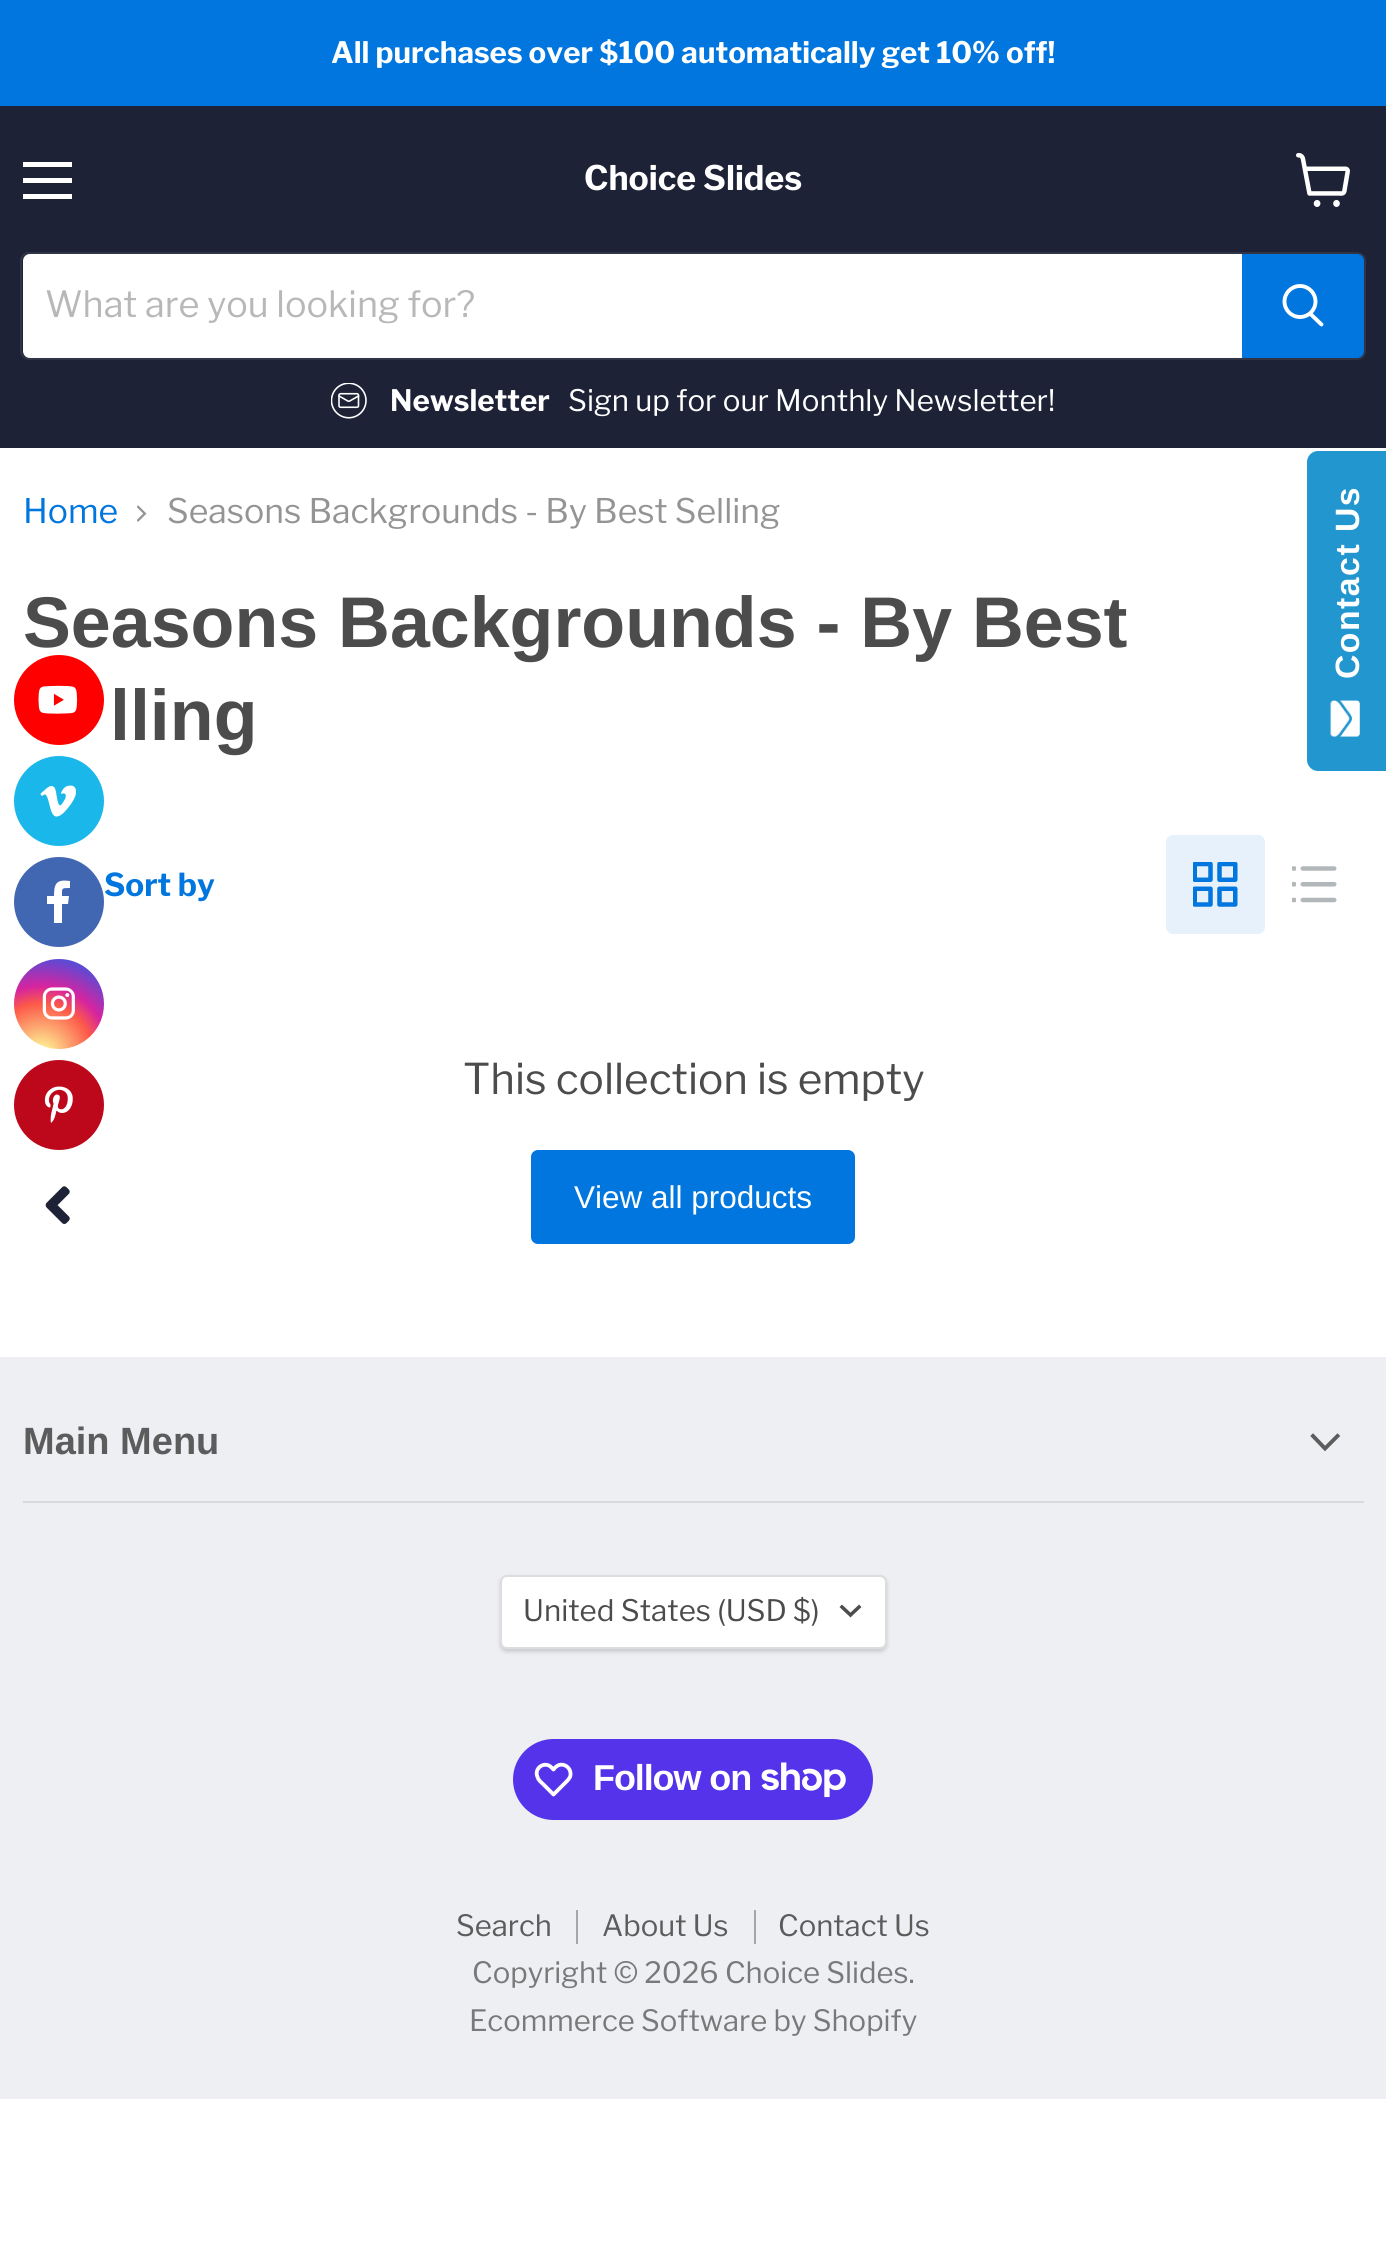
#include <cairo/cairo.h>
#include <math.h>
#include <stddef.h>

static cairo_t *cr;

static void use_color(int r, int g, int b) {
  cairo_set_source_rgb(cr, r / 255.0, g / 255.0, b / 255.0);
}

static void text(double x, double y, const char *s, const char *family, double size, int italic, int bold, int r, int g, int b) {
  cairo_select_font_face(cr, family, italic ? CAIRO_FONT_SLANT_ITALIC : CAIRO_FONT_SLANT_NORMAL,
    bold ? CAIRO_FONT_WEIGHT_BOLD : CAIRO_FONT_WEIGHT_NORMAL);
  cairo_set_font_size(cr, size);
  use_color(r, g, b);
  cairo_move_to(cr, x, y);
  cairo_show_text(cr, s);
}

static void spaced_text(double x, double y, const char *s, double letter, double word) {
  cairo_move_to(cr, x, y);
  while (*s) {
    char ch[5] = {0};
    int n = 0;
    do ch[n++] = *s++; while ((*s & 0xC0) == 0x80);
    cairo_show_text(cr, ch);
    cairo_rel_move_to(cr, letter + word * (*ch == ' '), 0);
  }
}

static void box(double x, double y, double w, double h, int r, int g, int b) {
  use_color(r, g, b);
  cairo_rectangle(cr, x, y, w, h);
  cairo_fill(cr);
}

static void round_rect(double x, double y, double w, double h, double r) {
  cairo_new_sub_path(cr);
  cairo_arc(cr, x + w - r, y + h - r, r, 0, M_PI / 2);
  cairo_arc(cr, x + r, y + h - r, r, M_PI / 2, M_PI);
  cairo_arc(cr, x + r, y + r, r, M_PI, 1.5 * M_PI);
  cairo_arc(cr, x + w - r, y + r, r, 1.5 * M_PI, 2 * M_PI);
  cairo_close_path(cr);
}

static void shadow(double x, double y, double w, double h, double r, double blur, double alpha) {
  cairo_push_group_with_content(cr, CAIRO_CONTENT_ALPHA);
  cairo_set_operator(cr, CAIRO_OPERATOR_SOURCE);
  for (int i = 15; i >= -15 && fmin(w, h) + blur * i / 3 > 0; i -= 2) {
    double e = blur * i / 6;
    cairo_set_source_rgba(cr, 0, 0, 0, alpha * erfc((i - 1) / 8.5) / 2);
    round_rect(x - e, y - e, w + 2 * e, h + 2 * e, fmax(0, fmin(r + e + blur * .6, fmin(w, h) / 2 + e)));
    cairo_fill(cr);
  }
  cairo_pattern_t *soft = cairo_pop_group(cr);
  cairo_mask(cr, soft);
  cairo_pattern_destroy(soft);
}

static void picture(const char *path, double x, double y, double w, double h) {
  cairo_surface_t *image = cairo_image_surface_create_from_png(path);
  cairo_save(cr);
  cairo_set_source_surface(cr, image, x, y);
  cairo_rectangle(cr, x, y, w, h);
  cairo_fill(cr);
  cairo_restore(cr);
  cairo_surface_destroy(image);
}

static void draw(void) {
  cairo_pattern_t *gradient;
  use_color(255, 255, 255);
  cairo_paint(cr);
  box(0, 0, 1386, 106, 0, 118, 222);
  box(0, 106, 1386, 342, 29, 34, 54);
  box(23, 162, 49, 5, 255, 255, 255);
  box(23, 178, 49, 5, 255, 255, 255);
  box(23, 194, 49, 5, 255, 255, 255);
  picture("img_01.png", 1296, 153, 54, 54);
  round_rect(21, 253, 1344, 106, 8);
  cairo_set_source_rgba(cr, 0.502, 0.502, 0.502, 0.2);
  cairo_stroke(cr);
  use_color(255, 255, 255);
  cairo_new_path(cr);
  cairo_move_to(cr, 30, 254);
  cairo_line_to(cr, 1242, 254);
  cairo_line_to(cr, 1242, 358);
  cairo_line_to(cr, 30, 358);
  cairo_curve_to(cr, 26, 358, 23, 355, 23, 351);
  cairo_line_to(cr, 23, 261);
  cairo_curve_to(cr, 23, 257, 26, 254, 30, 254);
  cairo_close_path(cr);
  cairo_fill(cr);
  use_color(0, 118, 222);
  cairo_new_path(cr);
  cairo_move_to(cr, 1243, 255);
  cairo_line_to(cr, 1357, 255);
  cairo_curve_to(cr, 1360.5, 255, 1363, 257.5, 1363, 261);
  cairo_line_to(cr, 1363, 351);
  cairo_curve_to(cr, 1363, 354.5, 1360.5, 357, 1357, 357);
  cairo_line_to(cr, 1243, 357);
  cairo_close_path(cr);
  cairo_fill_preserve(cr);
  cairo_stroke(cr);
  cairo_new_path(cr);
  cairo_move_to(cr, 1321.5, 324.5);
  cairo_line_to(cr, 1310.5, 314);
  use_color(255, 255, 255);
  cairo_set_line_width(cr, 3.9);
  cairo_set_line_cap(cr, CAIRO_LINE_CAP_ROUND);
  cairo_stroke(cr);
  cairo_arc(cr, 1300, 301.5, 15.5, 0, 2 * M_PI);
  cairo_set_line_cap(cr, CAIRO_LINE_CAP_BUTT);
  cairo_stroke(cr);
  picture("img_02.png", 331, 383, 36, 36);
  picture("img_03.png", 137, 505, 10, 17);
  use_color(230, 241, 252);
  round_rect(1166, 835, 99, 99, 7);
  cairo_fill(cr);
  picture("img_04.png", 1193, 862, 45, 45);
  picture("img_05.png", 1292, 866, 45, 37);
  use_color(0, 118, 222);
  round_rect(532, 1151, 322, 92, 6);
  cairo_fill_preserve(cr);
  cairo_set_line_width(cr, 2);
  cairo_stroke(cr);
  use_color(33, 150, 207);
  cairo_new_path(cr);
  cairo_move_to(cr, 1307, 760);
  cairo_line_to(cr, 1307, 462);
  cairo_curve_to(cr, 1307, 456, 1312, 451, 1318, 451);
  cairo_line_to(cr, 1386, 451);
  cairo_line_to(cr, 1386, 771);
  cairo_line_to(cr, 1318, 771);
  cairo_curve_to(cr, 1312, 771, 1307, 766, 1307, 760);
  cairo_close_path(cr);
  cairo_fill(cr);
  picture("img_06.png", 1330, 700, 30, 37);
  use_color(26, 183, 234);
  cairo_arc(cr, 59, 801, 45, 0, 2 * M_PI);
  cairo_fill(cr);
  picture("img_08.png", 40, 785, 36, 32);
  use_color(66, 103, 178);
  cairo_arc(cr, 59, 902, 45, 0, 2 * M_PI);
  cairo_fill(cr);
  use_color(255, 255, 255);
  cairo_set_fill_rule(cr, CAIRO_FILL_RULE_EVEN_ODD);
  cairo_new_path(cr);
  cairo_move_to(cr, 54, 923);
  cairo_line_to(cr, 62, 923);
  cairo_line_to(cr, 62, 904);
  cairo_line_to(cr, 68, 904);
  cairo_line_to(cr, 69, 896);
  cairo_line_to(cr, 62, 896);
  cairo_curve_to(cr, 62, 888, 61, 888, 70, 888);
  cairo_line_to(cr, 70, 881);
  cairo_curve_to(cr, 56, 879, 54, 884, 54, 896);
  cairo_line_to(cr, 47, 896);
  cairo_line_to(cr, 47, 904);
  cairo_line_to(cr, 54, 904);
  cairo_close_path(cr);
  cairo_fill(cr);
  gradient = cairo_pattern_create_radial(41, 1055, 0, 41, 1055, 115);
  cairo_pattern_add_color_stop_rgba(gradient, 0, 0.992, 0.957, 0.592, 1);
  cairo_pattern_add_color_stop_rgba(gradient, 0.05, 0.992, 0.957, 0.592, 1);
  cairo_pattern_add_color_stop_rgba(gradient, 0.45, 0.992, 0.349, 0.286, 1);
  cairo_pattern_add_color_stop_rgba(gradient, 0.6, 0.839, 0.141, 0.624, 1);
  cairo_pattern_add_color_stop_rgba(gradient, 0.95, 0.157, 0.353, 0.922, 1);
  cairo_set_source(cr, gradient);
  cairo_pattern_destroy(gradient);
  cairo_arc(cr, 59, 1004, 45, 0, 2 * M_PI);
  cairo_fill(cr);
  picture("img_09.png", 42, 987, 33, 33);
  use_color(189, 8, 28);
  cairo_arc(cr, 59, 1105, 45, 0, 2 * M_PI);
  cairo_fill(cr);
  picture("img_10.png", 44, 1086, 29, 37);
  picture("img_11.png", 45, 1186, 25, 38);
  box(0, 1357, 1386, 742, 237, 239, 243);
  box(23, 1501, 1341, 2, 215, 217, 220);
  cairo_new_path(cr);
  cairo_move_to(cr, 1325, 1448.5);
  cairo_line_to(cr, 1337.5, 1436);
  cairo_move_to(cr, 1325, 1448.5);
  cairo_line_to(cr, 1313, 1436);
  use_color(92, 92, 92);
  cairo_set_line_width(cr, 3.9);
  cairo_set_line_cap(cr, CAIRO_LINE_CAP_SQUARE);
  cairo_stroke(cr);
  use_color(0, 0, 0);
  shadow(500, 1577, 387, 75, 7, 2, 0.15);
  use_color(255, 255, 255);
  round_rect(501, 1576, 385, 72, 6);
  cairo_fill_preserve(cr);
  use_color(221, 221, 221);
  cairo_set_line_width(cr, 2);
  cairo_set_line_cap(cr, CAIRO_LINE_CAP_BUTT);
  cairo_stroke(cr);
  cairo_new_path(cr);
  cairo_move_to(cr, 850.5, 1615);
  cairo_line_to(cr, 859, 1607);
  cairo_move_to(cr, 850.5, 1615);
  cairo_line_to(cr, 842, 1607);
  use_color(77, 77, 77);
  cairo_set_line_width(cr, 3.5);
  cairo_set_line_cap(cr, CAIRO_LINE_CAP_SQUARE);
  cairo_stroke(cr);
  use_color(84, 51, 235);
  round_rect(513, 1739, 360, 81, 40.5);
  cairo_fill(cr);
  cairo_new_path(cr);
  cairo_move_to(cr, 551.5, 1767.5);
  cairo_line_to(cr, 553.5, 1769.5);
  cairo_curve_to(cr, 555, 1767.5, 556.5, 1766, 559, 1765);
  cairo_curve_to(cr, 566, 1763, 572.5, 1770, 570, 1777);
  cairo_curve_to(cr, 568.5, 1780, 565.5, 1782.5, 563, 1785);
  cairo_line_to(cr, 553.5, 1794.5);
  cairo_line_to(cr, 544, 1785);
  cairo_curve_to(cr, 541.5, 1782.5, 538.5, 1780.5, 537.5, 1777);
  cairo_curve_to(cr, 533.5, 1768, 545, 1760.5, 551.5, 1767.5);
  cairo_close_path(cr);
  use_color(255, 255, 255);
  cairo_set_line_width(cr, 3.8);
  cairo_set_line_cap(cr, CAIRO_LINE_CAP_BUTT);
  cairo_set_line_join(cr, CAIRO_LINE_JOIN_ROUND);
  cairo_stroke(cr);
  picture("img_12.png", 761, 1762, 85, 36);
  box(576, 1910, 2, 34, 165, 166, 168);
  box(754, 1910, 2, 34, 165, 166, 168);
  text(331, 63, "All purchases over $100 automatically get 10% off!", "Libre Franklin", 29.5, 0, 1, 255, 255, 255);
  text(584, 190, "Choice Slides", "Libre Franklin", 33.75, 0, 1, 255, 255, 255);
  text(45, 317, "What are you looking for?", "Libre Franklin", 36, 0, 0, 184, 184, 184);
  text(390, 411, "Newsletter", "Libre Franklin", 29.5, 0, 1, 255, 255, 255);
  text(568, 411, "Sign up for our Monthly Newsletter!", "Libre Franklin", 29.5, 0, 0, 255, 255, 255);
  text(23, 523, "Home", "Libre Franklin", 33.75, 0, 0, 0, 118, 222);
  text(167, 523, "Seasons Backgrounds - By Best Selling", "Libre Franklin", 33.75, 0, 0, 148, 148, 148);
  text(23, 647, "Seasons Backgrounds - By Best", "Arimo", 71.75, 0, 1, 76, 76, 76);
  text(110, 740, "lling", "Arimo", 71.75, 0, 1, 76, 76, 76);
  text(104, 896, "Sort by", "Libre Franklin", 31.5, 0, 1, 0, 118, 222);
  text(463, 1094, "This collection is empty", "Libre Franklin", 42.25, 0, 0, 76, 76, 76);
  text(574, 1208, "View all products", "Liberation Sans", 31.5, 0, 0, 255, 255, 255);
  cairo_select_font_face(cr, "Liberation Sans", CAIRO_FONT_SLANT_NORMAL, CAIRO_FONT_WEIGHT_BOLD);
  cairo_set_font_size(cr, 33.75);
  cairo_save(cr);
  cairo_translate(cr, 1359, 679);
  cairo_rotate(cr, -90 * M_PI / 180);
  spaced_text(0, 0, "Contact Us", 1.5, 0);
  cairo_restore(cr);
  use_color(255, 0, 0);
  cairo_new_path(cr);
  cairo_arc(cr, 59, 700, 45, 0, 2 * M_PI);
  cairo_fill(cr);
  picture("img_07.png", 38, 685, 40, 29);
  text(23, 1454, "Main Menu", "Arimo", 38, 0, 1, 92, 92, 92);
  text(523, 1621, "United States (USD $)", "Libre Franklin", 29.5, 0, 0, 76, 76, 76);
  cairo_select_font_face(cr, "Liberation Sans", CAIRO_FONT_SLANT_NORMAL, CAIRO_FONT_WEIGHT_BOLD);
  cairo_set_font_size(cr, 36);
  use_color(255, 255, 255);
  spaced_text(593, 1790, "Follow on", -1.1, 0);
  text(456, 1936, "Search", "Libre Franklin", 29.25, 0, 0, 92, 92, 92);
  text(602, 1936, "About Us", "Libre Franklin", 29.25, 0, 0, 92, 92, 92);
  text(778, 1936, "Contact Us", "Libre Franklin", 29.25, 0, 0, 92, 92, 92);
  text(472, 1983, "Copyright © 2026 Choice Slides.", "Libre Franklin", 29.25, 0, 0, 121, 121, 122);
  text(469, 2031, "Ecommerce Software by Shopify", "Libre Franklin", 29.25, 0, 0, 121, 121, 122);
}

int main(void) {
  cairo_surface_t *surface = cairo_image_surface_create(CAIRO_FORMAT_RGB24, 1386, 2254);
  cr = cairo_create(surface);
  cairo_font_options_t *options = cairo_font_options_create();
  cairo_font_options_set_hint_metrics(options, CAIRO_HINT_METRICS_OFF);
  cairo_font_options_set_hint_style(options, CAIRO_HINT_STYLE_NONE);
  cairo_set_font_options(cr, options);
  cairo_set_miter_limit(cr, 4);
  draw();
  cairo_surface_write_to_png(surface, "out.png");
  cairo_font_options_destroy(options);
  cairo_destroy(cr);
  cairo_surface_destroy(surface);
  return 0;
}
